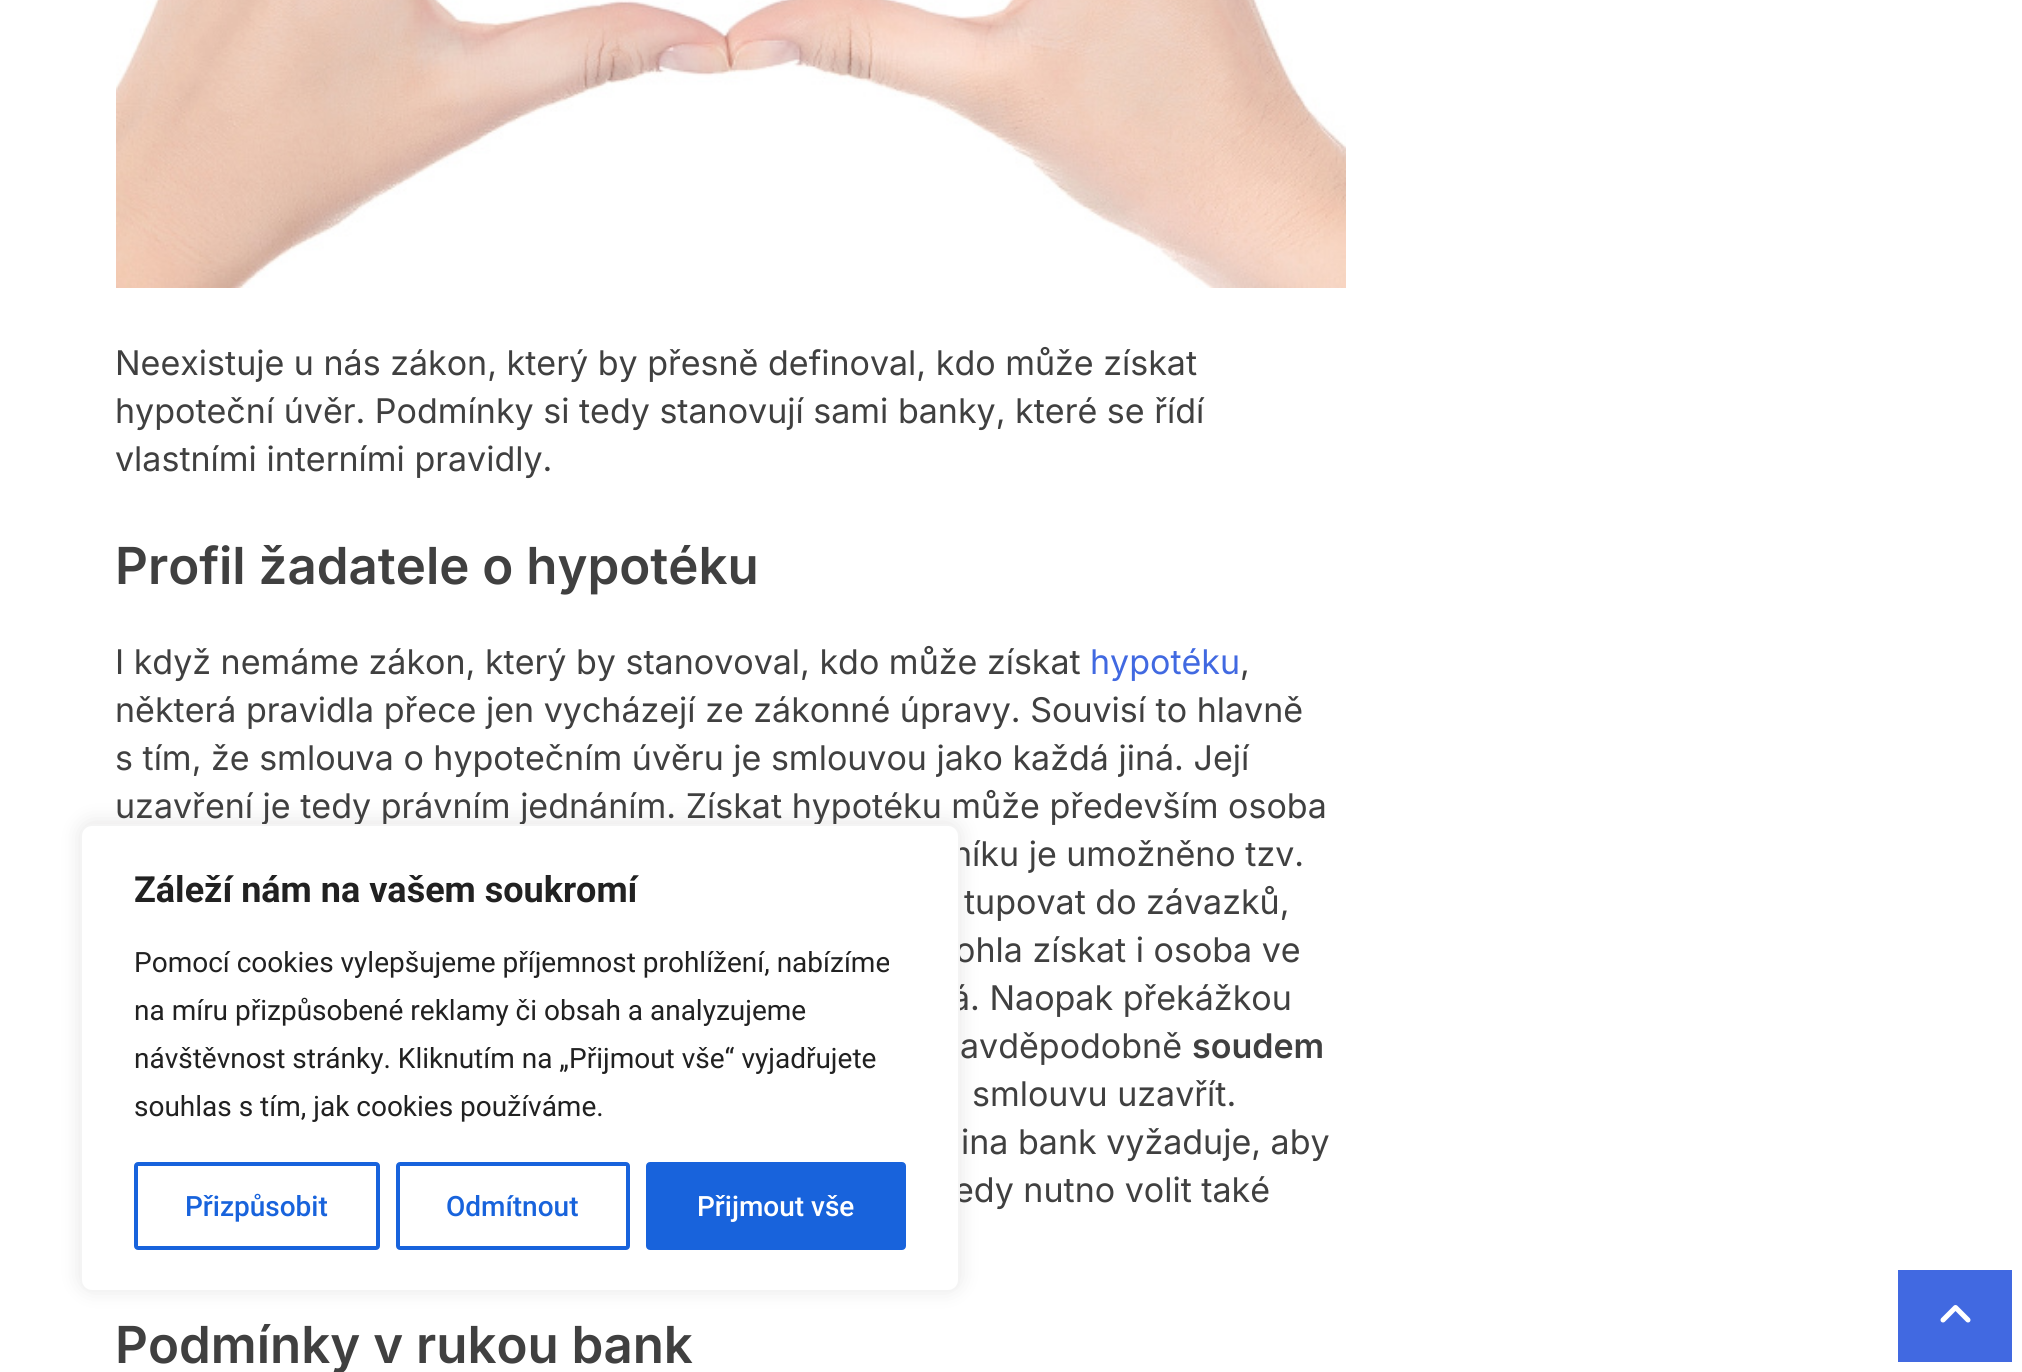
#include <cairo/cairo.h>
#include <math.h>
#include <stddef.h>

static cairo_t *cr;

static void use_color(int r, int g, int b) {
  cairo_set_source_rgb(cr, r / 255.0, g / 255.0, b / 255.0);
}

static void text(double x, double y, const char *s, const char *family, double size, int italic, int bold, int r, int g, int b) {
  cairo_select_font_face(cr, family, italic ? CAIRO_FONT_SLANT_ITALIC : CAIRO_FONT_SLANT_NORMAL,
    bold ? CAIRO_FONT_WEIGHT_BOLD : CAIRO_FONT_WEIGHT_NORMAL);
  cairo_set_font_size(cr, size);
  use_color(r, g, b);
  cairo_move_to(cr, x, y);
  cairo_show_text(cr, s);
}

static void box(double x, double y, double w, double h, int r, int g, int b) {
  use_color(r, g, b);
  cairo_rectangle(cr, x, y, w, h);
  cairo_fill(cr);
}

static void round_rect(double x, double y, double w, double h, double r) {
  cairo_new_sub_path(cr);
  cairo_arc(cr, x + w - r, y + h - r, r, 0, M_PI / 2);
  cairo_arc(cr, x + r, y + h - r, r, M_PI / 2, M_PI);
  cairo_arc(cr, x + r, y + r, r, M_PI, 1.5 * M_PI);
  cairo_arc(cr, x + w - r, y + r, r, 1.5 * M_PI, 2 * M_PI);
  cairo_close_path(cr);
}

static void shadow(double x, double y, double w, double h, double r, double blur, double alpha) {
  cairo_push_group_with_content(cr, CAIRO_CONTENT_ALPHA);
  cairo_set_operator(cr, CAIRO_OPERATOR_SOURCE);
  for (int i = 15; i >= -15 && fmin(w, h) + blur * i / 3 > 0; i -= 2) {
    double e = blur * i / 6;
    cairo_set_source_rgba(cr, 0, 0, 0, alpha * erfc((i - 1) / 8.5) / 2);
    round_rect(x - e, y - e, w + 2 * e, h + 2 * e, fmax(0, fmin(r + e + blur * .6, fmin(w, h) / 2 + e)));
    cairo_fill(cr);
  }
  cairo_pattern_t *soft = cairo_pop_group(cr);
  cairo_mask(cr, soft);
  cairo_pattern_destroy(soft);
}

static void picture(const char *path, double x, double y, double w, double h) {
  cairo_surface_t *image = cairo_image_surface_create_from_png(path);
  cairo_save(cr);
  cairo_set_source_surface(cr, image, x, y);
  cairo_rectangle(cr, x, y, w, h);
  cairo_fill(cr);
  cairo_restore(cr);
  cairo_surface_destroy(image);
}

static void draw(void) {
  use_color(255, 255, 255);
  cairo_paint(cr);
  picture("img_01.png", 116, 0, 1230, 288);
  box(1898, 1270, 114, 92, 65, 105, 225);
  picture("img_02.png", 1940, 1305, 31, 18);
  use_color(172, 171, 171);
  shadow(80, 822, 880, 468, 12, 10, 0.3);
  text(115, 375, "Neexistuje u nás zákon, který by přesně definoval, kdo může získat", "Inter", 34, 0, 0, 64, 64, 64);
  text(115, 423, "hypoteční úvěr. Podmínky si tedy stanovují sami banky, které se řídí", "Inter", 34, 0, 0, 64, 64, 64);
  text(115, 471, "vlastními interními pravidly.", "Inter", 34, 0, 0, 64, 64, 64);
  text(115, 584, "Profil žadatele o hypotéku", "Inter SemiBold", 51, 0, 0, 64, 64, 64);
  text(115, 674, "I když nemáme zákon, který by stanovoval, kdo může získat", "Inter", 34, 0, 0, 64, 64, 64);
  text(1090, 674, "hypotéku", "Inter", 34, 0, 0, 65, 105, 225);
  text(1240, 674, ",", "Inter", 34, 0, 0, 64, 64, 64);
  text(115, 722, "některá pravidla přece jen vycházejí ze zákonné úpravy. Souvisí to hlavně", "Inter", 34, 0, 0, 64, 64, 64);
  text(115, 770, "s tím, že smlouva o hypotečním úvěru je smlouvou jako každá jiná. Její", "Inter", 34, 0, 0, 64, 64, 64);
  text(115, 818, "uzavření je tedy právním jednáním. Získat hypotéku může především osoba", "Inter", 34, 0, 0, 64, 64, 64);
  text(952, 866, "níku je umožněno tzv.", "Inter", 34, 0, 0, 64, 64, 64);
  text(964, 914, "tupovat do závazků,", "Inter", 34, 0, 0, 64, 64, 64);
  text(955, 962, "ohla získat i osoba ve", "Inter", 34, 0, 0, 64, 64, 64);
  text(951, 1010, "á. Naopak překážkou", "Inter", 34, 0, 0, 64, 64, 64);
  text(960, 1058, "avděpodobně", "Inter", 34, 0, 0, 64, 64, 64);
  text(1192, 1058, "soudem", "Inter SemiBold", 34, 0, 0, 64, 64, 64);
  text(972, 1106, "smlouvu uzavřít.", "Inter", 34, 0, 0, 64, 64, 64);
  text(961, 1154, "ina bank vyžaduje, aby", "Inter", 34, 0, 0, 64, 64, 64);
  text(954, 1202, "edy nutno volit také", "Inter", 34, 0, 0, 64, 64, 64);
  text(115, 1363, "Podmínky v rukou bank", "Inter SemiBold", 51, 0, 0, 64, 64, 64);
  use_color(255, 255, 255);
  round_rect(81, 825, 878, 466, 11);
  cairo_fill_preserve(cr);
  use_color(244, 244, 244);
  cairo_stroke(cr);
  text(134, 902, "Záleží nám na vašem soukromí", "Roboto", 36, 0, 1, 33, 33, 33);
  text(134, 972, "Pomocí cookies vylepšujeme příjemnost prohlížení, nabízíme", "Roboto", 28, 0, 0, 33, 33, 33);
  text(134, 1020, "na míru přizpůsobené reklamy či obsah a analyzujeme", "Roboto", 28, 0, 0, 33, 33, 33);
  text(134, 1068, "návštěvnost stránky. Kliknutím na „Přijmout vše“ vyjadřujete", "Roboto", 28, 0, 0, 33, 33, 33);
  text(134, 1116, "souhlas s tím, jak cookies používáme.", "Roboto", 28, 0, 0, 33, 33, 33);
  round_rect(136, 1164, 242, 84, 2);
  use_color(24, 99, 220);
  cairo_set_line_width(cr, 4);
  cairo_stroke(cr);
  text(185, 1216, "Přizpůsobit", "Roboto Medium", 28, 0, 0, 24, 99, 220);
  round_rect(398, 1164, 230, 84, 2);
  cairo_stroke(cr);
  text(446, 1216, "Odmítnout", "Roboto Medium", 28, 0, 0, 24, 99, 220);
  round_rect(648, 1164, 256, 84, 2);
  cairo_fill_preserve(cr);
  cairo_stroke(cr);
  text(697, 1216, "Přijmout vše", "Roboto Medium", 28, 0, 0, 255, 255, 255);
}

int main(void) {
  cairo_surface_t *surface = cairo_image_surface_create(CAIRO_FORMAT_RGB24, 2022, 1372);
  cr = cairo_create(surface);
  cairo_font_options_t *options = cairo_font_options_create();
  cairo_font_options_set_hint_metrics(options, CAIRO_HINT_METRICS_OFF);
  cairo_font_options_set_hint_style(options, CAIRO_HINT_STYLE_NONE);
  cairo_set_font_options(cr, options);
  cairo_set_miter_limit(cr, 4);
  draw();
  cairo_surface_write_to_png(surface, "out.png");
  cairo_font_options_destroy(options);
  cairo_destroy(cr);
  cairo_surface_destroy(surface);
  return 0;
}
